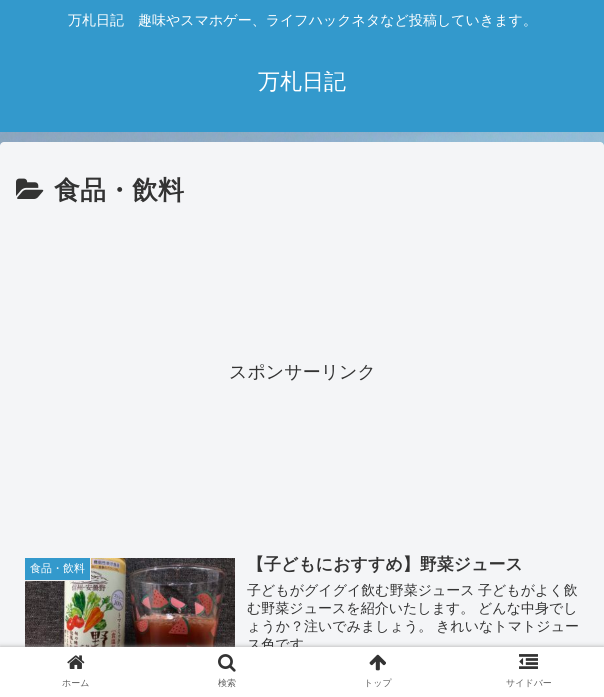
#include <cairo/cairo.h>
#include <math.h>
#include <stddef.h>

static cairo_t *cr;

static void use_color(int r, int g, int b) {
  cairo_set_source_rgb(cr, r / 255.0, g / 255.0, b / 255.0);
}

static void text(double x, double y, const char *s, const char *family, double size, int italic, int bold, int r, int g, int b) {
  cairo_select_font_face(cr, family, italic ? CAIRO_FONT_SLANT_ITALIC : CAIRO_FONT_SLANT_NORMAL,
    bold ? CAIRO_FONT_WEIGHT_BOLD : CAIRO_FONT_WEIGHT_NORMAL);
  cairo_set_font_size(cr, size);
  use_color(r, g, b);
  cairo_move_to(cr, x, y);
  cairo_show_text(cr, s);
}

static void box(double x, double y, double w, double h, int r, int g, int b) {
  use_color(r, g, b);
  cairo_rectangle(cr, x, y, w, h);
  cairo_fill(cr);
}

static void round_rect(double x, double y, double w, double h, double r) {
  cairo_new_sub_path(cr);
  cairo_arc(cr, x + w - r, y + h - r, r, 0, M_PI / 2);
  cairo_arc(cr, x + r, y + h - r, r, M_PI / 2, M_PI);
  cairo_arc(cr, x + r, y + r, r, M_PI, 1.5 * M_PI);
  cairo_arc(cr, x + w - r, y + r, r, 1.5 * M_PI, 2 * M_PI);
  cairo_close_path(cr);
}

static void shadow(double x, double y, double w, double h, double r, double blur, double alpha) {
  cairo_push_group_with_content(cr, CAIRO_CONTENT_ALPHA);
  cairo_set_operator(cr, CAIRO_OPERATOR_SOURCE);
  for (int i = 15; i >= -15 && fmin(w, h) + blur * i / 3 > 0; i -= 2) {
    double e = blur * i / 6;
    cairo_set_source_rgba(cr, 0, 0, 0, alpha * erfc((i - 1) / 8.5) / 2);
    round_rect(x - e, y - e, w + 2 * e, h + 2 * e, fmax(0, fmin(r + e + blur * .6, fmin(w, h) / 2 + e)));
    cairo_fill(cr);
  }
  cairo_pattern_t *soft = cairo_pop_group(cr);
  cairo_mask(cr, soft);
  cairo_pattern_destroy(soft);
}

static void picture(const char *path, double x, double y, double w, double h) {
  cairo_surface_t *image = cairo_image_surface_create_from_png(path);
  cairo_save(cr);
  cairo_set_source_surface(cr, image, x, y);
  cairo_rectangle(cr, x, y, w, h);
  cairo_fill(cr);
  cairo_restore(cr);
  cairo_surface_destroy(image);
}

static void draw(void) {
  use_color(255, 255, 255);
  cairo_paint(cr);
  picture("img_01.png", 0, 132, 604, 14);
  box(0, 0, 604, 132, 51, 153, 204);
  use_color(244, 245, 247);
  round_rect(0, 142, 604, 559, 4);
  cairo_fill(cr);
  picture("img_02.png", 16, 178, 28, 21);
  picture("img_03.png", 25, 558, 210, 89);
  box(25, 558, 65, 22, 51, 153, 204);
  box(90, 558, 1, 23, 238, 238, 238);
  box(25, 580, 66, 1, 238, 238, 238);
  use_color(169, 169, 169);
  shadow(0, 647, 604, 50, 0, 2.5, 1);
  text(68, 25, "万札日記　趣味やスマホゲー、ライフハックネタなど投稿していきます。", "WenQuanYi Zen Hei Medium", 14, 0, 0, 255, 255, 255);
  text(258, 89, "万札日記", "WenQuanYi Zen Hei Medium", 22, 0, 0, 255, 255, 255);
  text(54, 199, "食品・飲料", "WenQuanYi Zen Hei", 26, 0, 1, 51, 51, 51);
  text(229, 378, "スポンサーリンク", "WenQuanYi Zen Hei Medium", 18, 0, 0, 51, 51, 51);
  text(30, 572, "食品・飲料", "WenQuanYi Zen Hei Medium", 11, 0, 0, 255, 255, 255);
  text(247, 570, "【子どもにおすすめ】野菜ジュース", "WenQuanYi Zen Hei", 17, 0, 1, 51, 51, 51);
  text(247, 595, "子どもがグイグイ飲む野菜ジュース", "WenQuanYi Zen Hei Medium", 14, 0, 0, 51, 51, 51);
  text(478, 595, "子どもがよく飲", "WenQuanYi Zen Hei Medium", 14, 0, 0, 51, 51, 51);
  text(247, 613, "む野菜ジュースを紹介いたします。", "WenQuanYi Zen Hei Medium", 14, 0, 0, 51, 51, 51);
  text(478, 613, "どんな中身でし", "WenQuanYi Zen Hei Medium", 14, 0, 0, 51, 51, 51);
  text(247, 631, "ょうか？注いでみましょう。", "WenQuanYi Zen Hei Medium", 14, 0, 0, 51, 51, 51);
  text(436, 631, "きれいなトマトジュー", "WenQuanYi Zen Hei Medium", 14, 0, 0, 51, 51, 51);
  text(247, 649, "ス色です", "WenQuanYi Zen Hei Medium", 14, 0, 0, 51, 51, 51);
  box(0, 647, 604, 50, 255, 255, 255);
  picture("img_04.png", 67, 655, 18, 14);
  text(62, 686, "ホーム", "WenQuanYi Zen Hei Medium", 9, 0, 0, 92, 92, 92);
  picture("img_05.png", 218, 654, 18, 18);
  text(218, 686, "検索", "WenQuanYi Zen Hei Medium", 9, 0, 0, 92, 92, 92);
  picture("img_06.png", 369, 654, 17, 17);
  text(364, 686, "トップ", "WenQuanYi Zen Hei Medium", 9, 0, 0, 92, 92, 92);
  picture("img_07.png", 519, 654, 19, 15);
  text(506, 686, "サイドバー", "WenQuanYi Zen Hei Medium", 9, 0, 0, 92, 92, 92);
}

int main(void) {
  cairo_surface_t *surface = cairo_image_surface_create(CAIRO_FORMAT_RGB24, 604, 697);
  cr = cairo_create(surface);
  cairo_font_options_t *options = cairo_font_options_create();
  cairo_font_options_set_hint_metrics(options, CAIRO_HINT_METRICS_OFF);
  cairo_font_options_set_hint_style(options, CAIRO_HINT_STYLE_NONE);
  cairo_set_font_options(cr, options);
  cairo_set_miter_limit(cr, 4);
  draw();
  cairo_surface_write_to_png(surface, "out.png");
  cairo_font_options_destroy(options);
  cairo_destroy(cr);
  cairo_surface_destroy(surface);
  return 0;
}
